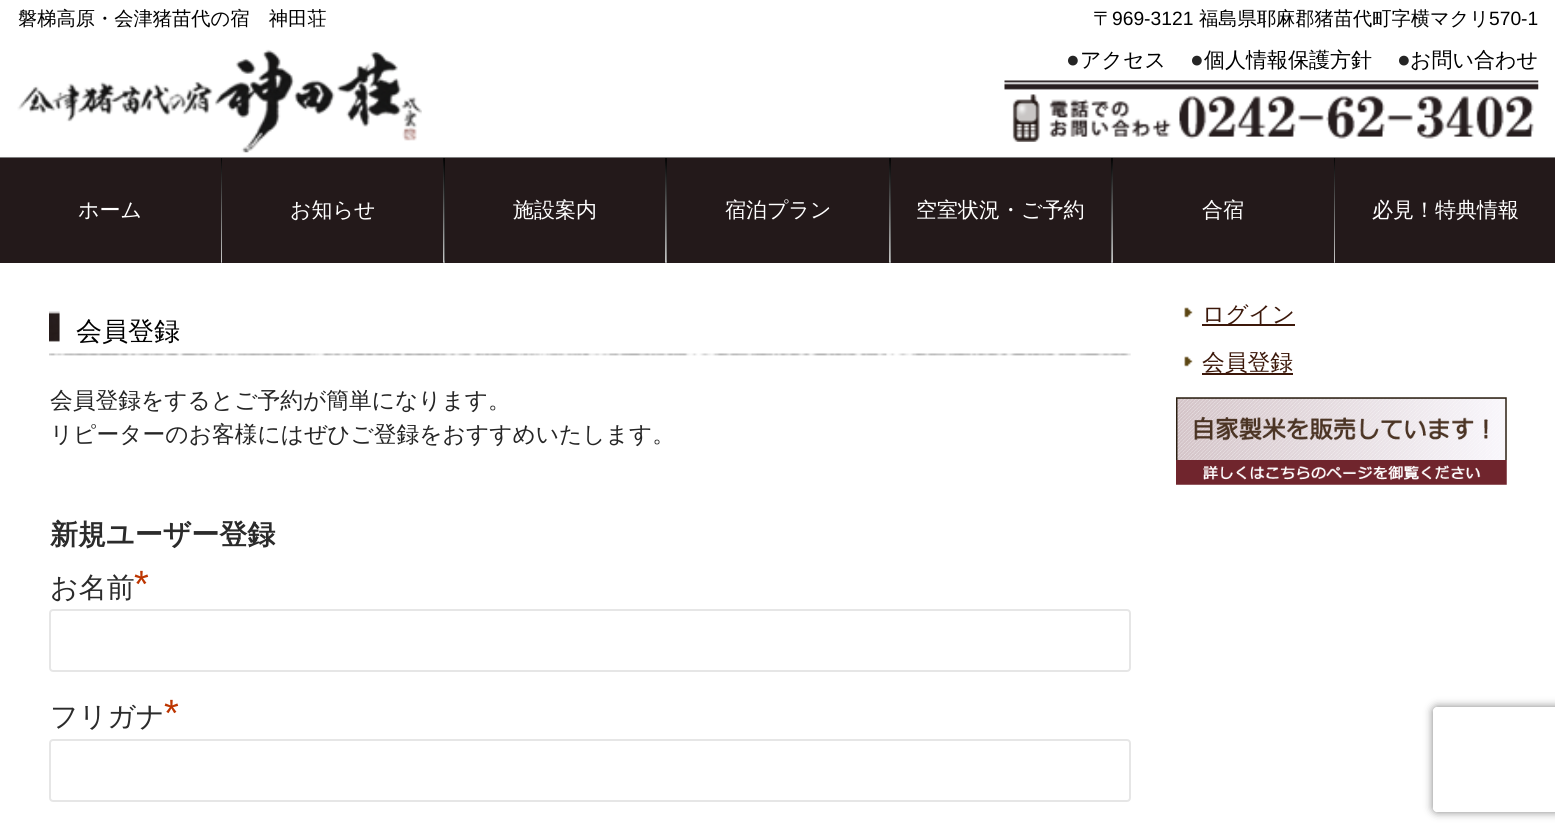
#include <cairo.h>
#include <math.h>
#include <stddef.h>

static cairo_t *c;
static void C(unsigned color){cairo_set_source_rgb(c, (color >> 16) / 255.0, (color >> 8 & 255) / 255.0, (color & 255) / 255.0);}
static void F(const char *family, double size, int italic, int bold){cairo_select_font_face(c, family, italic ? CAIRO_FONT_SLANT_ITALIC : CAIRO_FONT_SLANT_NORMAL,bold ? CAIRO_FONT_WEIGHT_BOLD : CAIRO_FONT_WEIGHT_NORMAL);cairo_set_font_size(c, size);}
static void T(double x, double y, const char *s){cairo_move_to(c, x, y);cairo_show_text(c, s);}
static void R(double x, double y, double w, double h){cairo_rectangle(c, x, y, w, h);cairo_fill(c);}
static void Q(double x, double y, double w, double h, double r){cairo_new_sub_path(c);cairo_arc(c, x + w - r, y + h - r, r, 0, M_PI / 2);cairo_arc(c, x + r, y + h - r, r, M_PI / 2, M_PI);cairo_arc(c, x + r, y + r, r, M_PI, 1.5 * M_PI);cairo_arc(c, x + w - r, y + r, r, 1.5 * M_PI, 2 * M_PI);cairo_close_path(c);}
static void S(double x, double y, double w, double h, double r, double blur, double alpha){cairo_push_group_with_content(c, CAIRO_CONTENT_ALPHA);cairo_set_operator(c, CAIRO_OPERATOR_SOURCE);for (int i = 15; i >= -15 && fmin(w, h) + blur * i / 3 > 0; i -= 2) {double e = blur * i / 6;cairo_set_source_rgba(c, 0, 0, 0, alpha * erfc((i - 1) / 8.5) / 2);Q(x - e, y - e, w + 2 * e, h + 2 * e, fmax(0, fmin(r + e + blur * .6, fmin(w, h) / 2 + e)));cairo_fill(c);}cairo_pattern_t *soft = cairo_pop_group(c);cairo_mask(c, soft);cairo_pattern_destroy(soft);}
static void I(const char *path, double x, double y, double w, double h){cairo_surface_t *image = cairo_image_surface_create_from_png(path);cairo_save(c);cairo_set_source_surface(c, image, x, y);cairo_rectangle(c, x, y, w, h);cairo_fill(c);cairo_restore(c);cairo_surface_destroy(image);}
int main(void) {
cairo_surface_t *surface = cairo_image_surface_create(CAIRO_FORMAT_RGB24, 1555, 835);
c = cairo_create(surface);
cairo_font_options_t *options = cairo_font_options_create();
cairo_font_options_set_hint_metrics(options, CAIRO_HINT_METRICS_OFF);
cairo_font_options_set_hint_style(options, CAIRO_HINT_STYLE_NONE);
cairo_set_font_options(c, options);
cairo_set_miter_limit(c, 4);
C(0xffffff);
cairo_paint(c);
I("1.png",0,0,1555,263);
F("WenQuanYi Zen Hei Medium",19.25,0,0);
C(0x000000);
T(18,25,"磐梯高原・会津猪苗代の宿　神田荘");
T(1093,25,"〒");
F("Liberation Sans",19.25,0,0);
T(1112,25,"969-3121");
F("WenQuanYi Zen Hei Medium",19.25,0,0);
T(1199,25,"福島県耶麻郡猪苗代町字横マクリ");
F("Liberation Sans",19.25,0,0);
T(1489,25,"570-1");
I("2.png",17,49,405,104);
F("Liberation Sans",22.75,0,0);
C(0x252525);
T(1066,67,"●");
F("WenQuanYi Zen Hei Medium",21,0,0);
C(0x000000);
T(1080,67,"アクセス");
F("Liberation Sans",22.75,0,0);
C(0x252525);
T(1190,67,"●");
F("WenQuanYi Zen Hei Medium",21,0,0);
C(0x000000);
T(1204,67,"個人情報保護方針");
F("Liberation Sans",22.75,0,0);
C(0x252525);
T(1397,67,"●");
F("WenQuanYi Zen Hei Medium",21,0,0);
C(0x000000);
T(1410,67,"お問い合わせ");
I("3.png",1004,80,535,62);
I("4.png",221,158,1,105);
C(0x23191a);
R(0,158,221,105);
C(0xffffff);
T(78,217,"ホーム");
I("5.png",443,158,2,105);
C(0x23191a);
R(222,158,221,105);
C(0xffffff);
T(290,217,"お知らせ");
I("6.png",665,158,2,105);
C(0x23191a);
R(445,158,220,105);
C(0xffffff);
T(513,217,"施設案内");
I("7.png",889,158,2,105);
C(0x23191a);
R(667,158,222,105);
C(0xffffff);
T(725,217,"宿泊プラン");
I("8.png",1111,158,2,105);
C(0x23191a);
R(891,158,220,105);
C(0xffffff);
T(916,217,"空室状況・ご予約");
I("9.png",1334,158,1,105);
C(0x23191a);
R(1113,158,221,105);
C(0xffffff);
T(1202,217,"合宿");
C(0x23191a);
R(1335,158,220,105);
C(0xffffff);
T(1372,217,"必見！特典情報");
I("10.png",49,311,1082,45);
F("WenQuanYi Zen Hei Medium",26,0,0);
C(0x000000);
T(76,340,"会員登録");
F("WenQuanYi Zen Hei Medium",22.75,0,0);
C(0x252525);
T(50,408,"会員登録をするとご予約が簡単になります。");
T(50,442,"リピーターのお客様にはぜひご登録をおすすめいたします。");
F("WenQuanYi Zen Hei",28,0,1);
C(0x2b2b2b);
T(50,544,"新規ユーザー登録");
F("WenQuanYi Zen Hei Medium",28,0,0);
T(50,597,"お名前");
F("Liberation Sans",38,0,0);
C(0xbd3500);
T(134,597,"*");
Q(50,610,1080,61,3);
C(0xe6e6e6);
cairo_stroke(c);
F("WenQuanYi Zen Hei Medium",28,0,0);
C(0x2b2b2b);
T(50,726,"フリガナ");
F("Liberation Sans",38,0,0);
C(0xbd3500);
T(164,726,"*");
Q(50,740,1080,61,3);
C(0xe6e6e6);
cairo_stroke(c);
I("11.png",1184,307,9,11);
C(0x3c180a);
R(1202,324,93,2);
F("WenQuanYi Zen Hei Medium",22.75,0,0);
T(1202,322,"ログイン");
I("11.png",1184,356,9,11);
R(1202,373,91,2);
T(1202,370,"会員登録");
I("12.png",1176,397,331,88);
cairo_save(c);
cairo_set_fill_rule(c,CAIRO_FILL_RULE_EVEN_ODD);
cairo_new_path(c);
cairo_move_to(c,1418,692);
cairo_line_to(c,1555,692);
cairo_line_to(c,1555,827);
cairo_line_to(c,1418,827);
cairo_close_path(c);
cairo_move_to(c,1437,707);
cairo_line_to(c,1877,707);
cairo_curve_to(c,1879,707,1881,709,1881,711);
cairo_line_to(c,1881,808);
cairo_curve_to(c,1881,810,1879,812,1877,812);
cairo_line_to(c,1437,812);
cairo_curve_to(c,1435,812,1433,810,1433,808);
cairo_line_to(c,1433,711);
cairo_curve_to(c,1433,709,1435,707,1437,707);
cairo_close_path(c);
cairo_clip(c);
C(0x808080);
S(1433,707,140,105,4,4.5,1);
cairo_restore(c);
cairo_surface_write_to_png(surface, "o.png");
cairo_font_options_destroy(options);
cairo_destroy(c);
cairo_surface_destroy(surface);
return 0;
}
